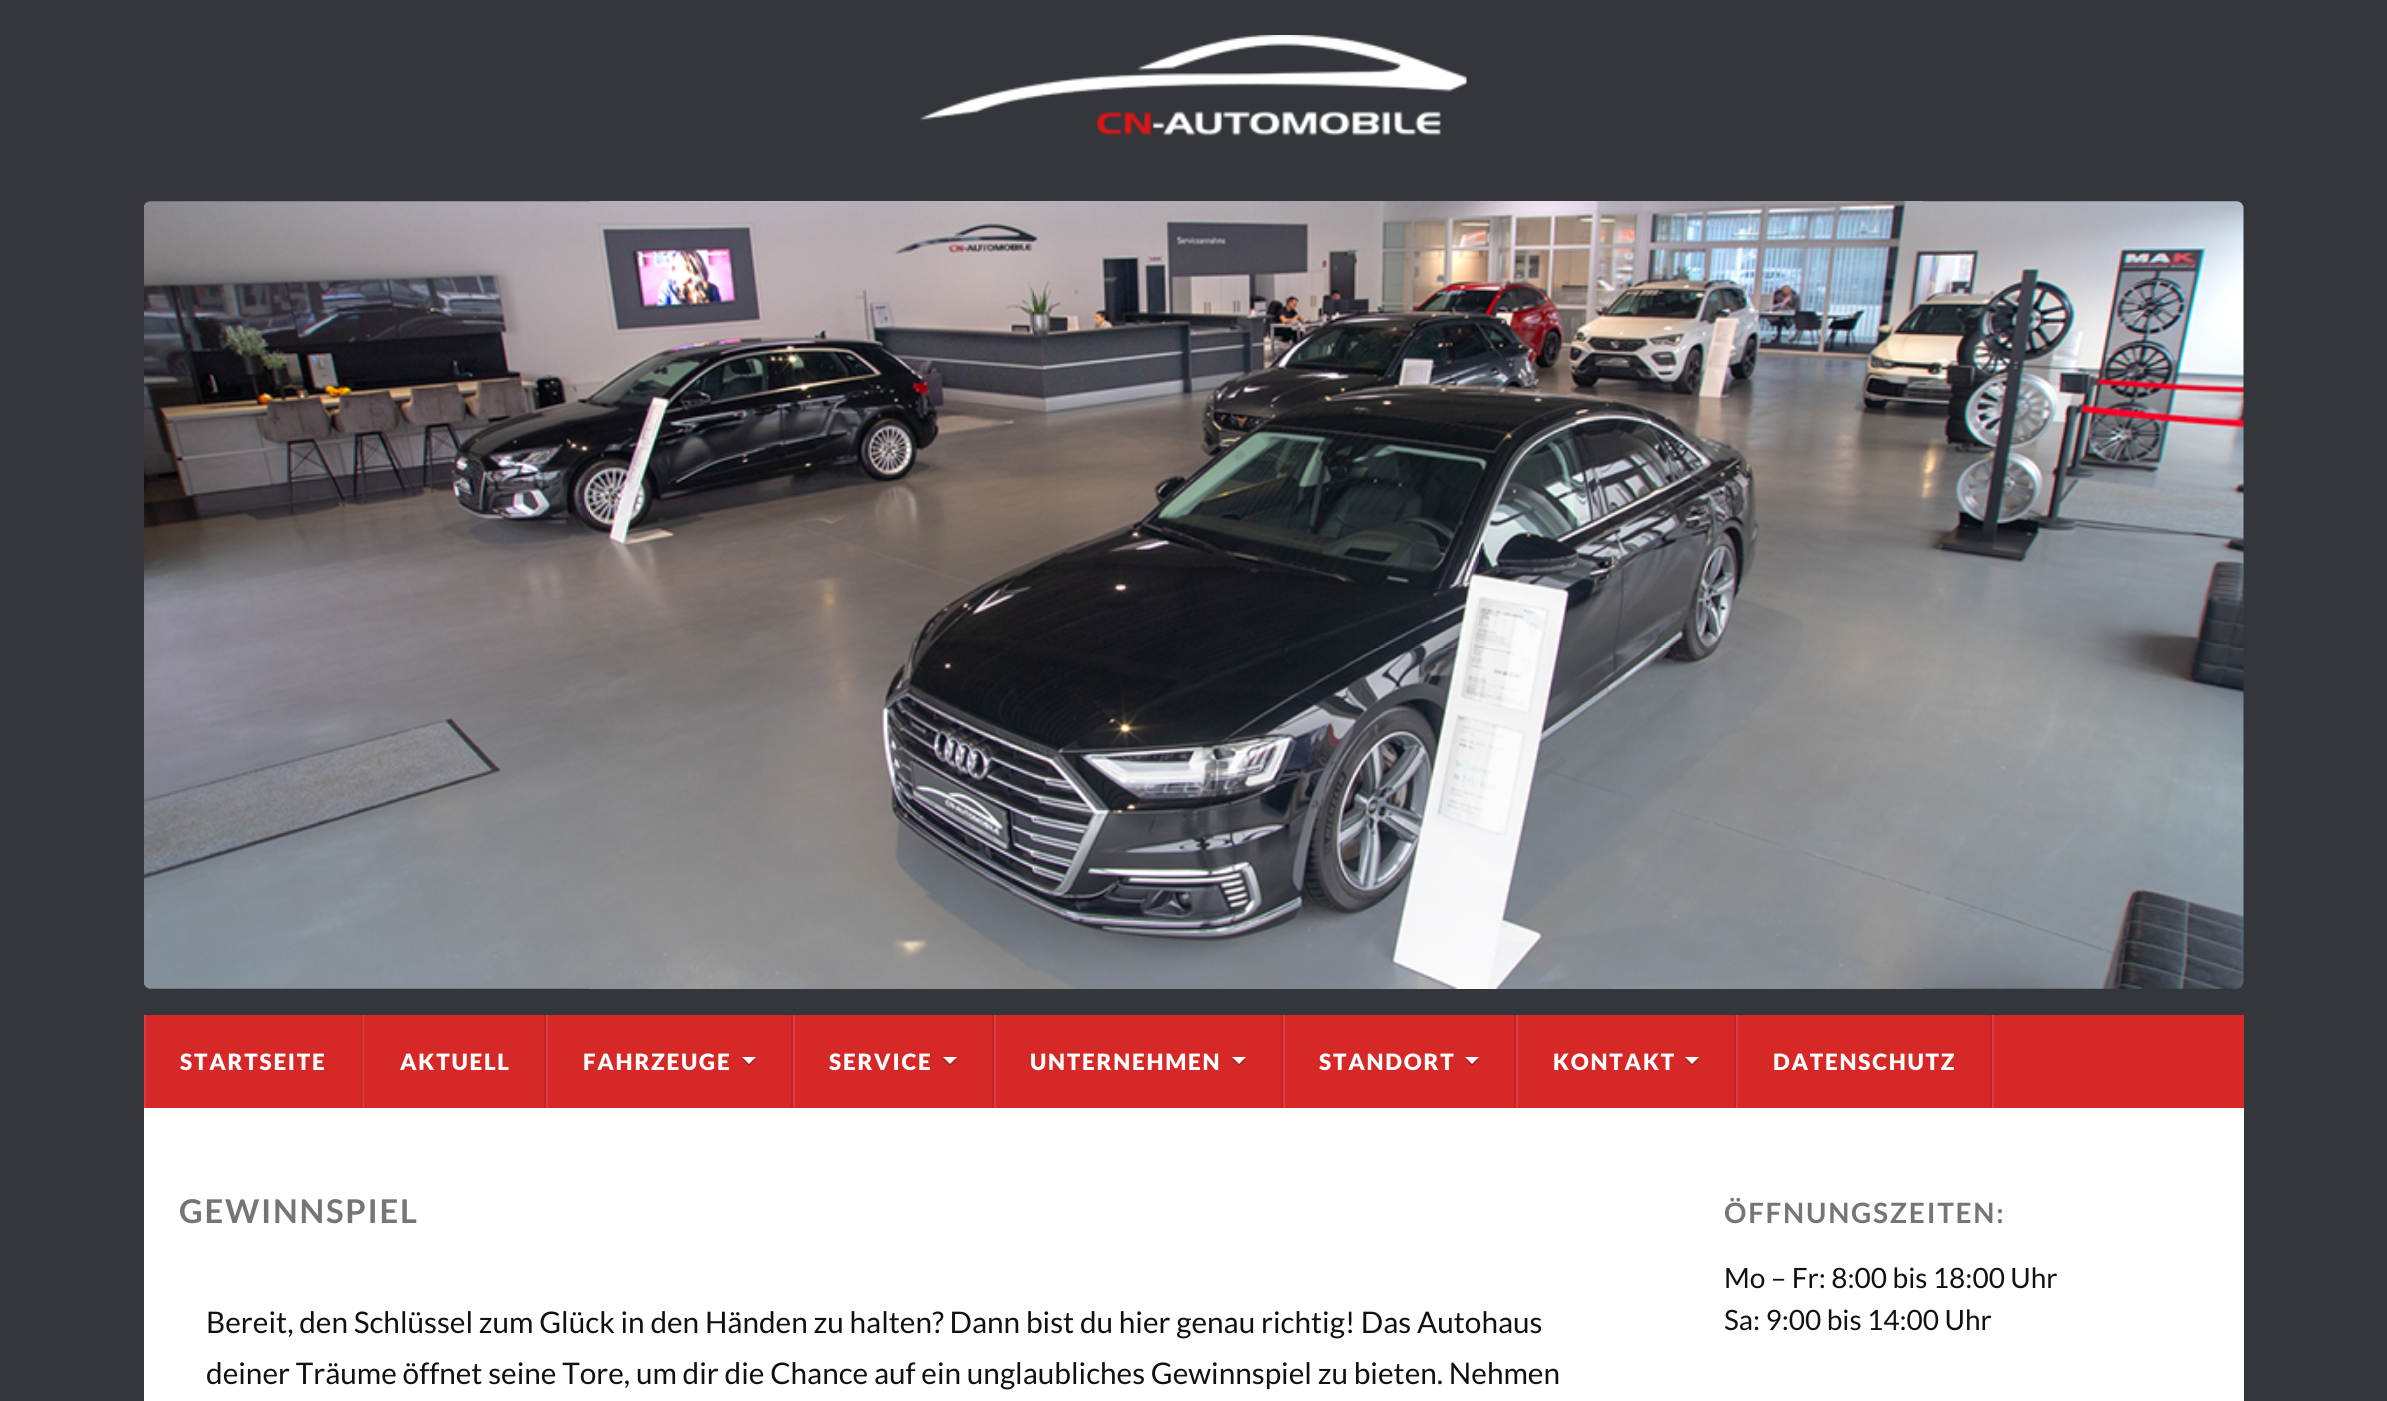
#include <cairo.h>
#include <math.h>
#include <stddef.h>

static cairo_t *c;
static void C(unsigned color){cairo_set_source_rgb(c, (color >> 16) / 255.0, (color >> 8 & 255) / 255.0, (color & 255) / 255.0);}
static void F(const char *family, double size, int italic, int bold){cairo_select_font_face(c, family, italic ? CAIRO_FONT_SLANT_ITALIC : CAIRO_FONT_SLANT_NORMAL,bold ? CAIRO_FONT_WEIGHT_BOLD : CAIRO_FONT_WEIGHT_NORMAL);cairo_set_font_size(c, size);}
static void T(double x, double y, const char *s){cairo_move_to(c, x, y);cairo_show_text(c, s);}
static void L(double x, double y, const char *s, double letter, double word){cairo_move_to(c, x, y);while (*s) {char ch[5] = {0};int n = 0;do ch[n++] = *s++; while ((*s & 0xC0) == 0x80);cairo_show_text(c, ch);cairo_rel_move_to(c, letter + word * (*ch == ' '), 0);}}
static void R(double x, double y, double w, double h){cairo_rectangle(c, x, y, w, h);cairo_fill(c);}
static void I(const char *path, double x, double y, double w, double h){cairo_surface_t *image = cairo_image_surface_create_from_png(path);cairo_save(c);cairo_set_source_surface(c, image, x, y);cairo_rectangle(c, x, y, w, h);cairo_fill(c);cairo_restore(c);cairo_surface_destroy(image);}
int main(void) {
cairo_surface_t *surface = cairo_image_surface_create(CAIRO_FORMAT_RGB24, 2387, 1401);
c = cairo_create(surface);
cairo_font_options_t *options = cairo_font_options_create();
cairo_font_options_set_hint_metrics(options, CAIRO_HINT_METRICS_OFF);
cairo_font_options_set_hint_style(options, CAIRO_HINT_STYLE_NONE);
cairo_set_font_options(c, options);
cairo_set_miter_limit(c, 4);
C(0x33363b);
cairo_paint(c);
I("1.png",920,35,547,101);
I("2.png",144,201,2100,788);
C(0xd72828);
R(146,1015,2098,93);
C(0xdb3e3e);
R(363,1015,1,93);
C(0xc22424);
R(361,1015,1,93);
C(0xc83a3a);
R(362,1015,1,93);
C(0xdb3e3e);
R(144,1015,2,93);
F("Lato Black",22.5,0,0);
C(0xffffff);
L(180,1070,"STARTSEITE",1.75,0);
C(0xc22424);
R(544,1015,2,93);
C(0xffffff);
L(400,1070,"AKTUELL",1.75,0);
C(0xc22424);
R(791,1015,2,93);
C(0xdb3e3e);
R(546,1015,2,93);
C(0xffffff);
L(583,1070,"FAHRZEUGE",1.75,0);
C(0xa11e1e);
cairo_new_path(c);
cairo_move_to(c,742,1059);
cairo_line_to(c,756,1059);
cairo_line_to(c,749,1066);
cairo_close_path(c);
cairo_fill(c);
C(0xffffff);
cairo_new_path(c);
cairo_move_to(c,742,1057);
cairo_line_to(c,756,1057);
cairo_line_to(c,749,1064);
cairo_close_path(c);
cairo_fill(c);
C(0xc22424);
R(992,1015,2,93);
C(0xdb3e3e);
R(793,1015,2,93);
C(0xffffff);
L(829,1070,"SERVICE",1.75,0);
C(0xa11e1e);
cairo_new_path(c);
cairo_move_to(c,943,1059);
cairo_line_to(c,957,1059);
cairo_line_to(c,950,1066);
cairo_close_path(c);
cairo_fill(c);
C(0xffffff);
cairo_new_path(c);
cairo_move_to(c,943,1057);
cairo_line_to(c,957,1057);
cairo_line_to(c,950,1064);
cairo_close_path(c);
cairo_fill(c);
C(0xc22424);
R(1281,1015,2,93);
C(0xdb3e3e);
R(994,1015,2,93);
C(0xffffff);
L(1030,1070,"UNTERNEHMEN",1.75,0);
C(0xa11e1e);
cairo_new_path(c);
cairo_move_to(c,1232,1059);
cairo_line_to(c,1246,1059);
cairo_line_to(c,1239,1066);
cairo_close_path(c);
cairo_fill(c);
C(0xffffff);
cairo_new_path(c);
cairo_move_to(c,1232,1057);
cairo_line_to(c,1246,1057);
cairo_line_to(c,1239,1064);
cairo_close_path(c);
cairo_fill(c);
C(0xc22424);
R(1514,1015,2,93);
C(0xdb3e3e);
R(1283,1015,2,93);
C(0xffffff);
L(1319,1070,"STANDORT",1.75,0);
C(0xa11e1e);
cairo_new_path(c);
cairo_move_to(c,1465,1059);
cairo_line_to(c,1479,1059);
cairo_line_to(c,1472,1066);
cairo_close_path(c);
cairo_fill(c);
C(0xffffff);
cairo_new_path(c);
cairo_move_to(c,1465,1057);
cairo_line_to(c,1479,1057);
cairo_line_to(c,1472,1064);
cairo_close_path(c);
cairo_fill(c);
C(0xc22424);
R(1734,1015,2,93);
C(0xdb3e3e);
R(1516,1015,2,93);
C(0xffffff);
L(1553,1070,"KONTAKT",1.75,0);
C(0xa11e1e);
cairo_new_path(c);
cairo_move_to(c,1685,1059);
cairo_line_to(c,1699,1059);
cairo_line_to(c,1692,1066);
cairo_close_path(c);
cairo_fill(c);
C(0xffffff);
cairo_new_path(c);
cairo_move_to(c,1685,1057);
cairo_line_to(c,1699,1057);
cairo_line_to(c,1692,1064);
cairo_close_path(c);
cairo_fill(c);
C(0xc22424);
R(1990,1015,2,93);
C(0xdb3e3e);
R(1736,1015,2,93);
C(0xffffff);
L(1773,1070,"DATENSCHUTZ",1.75,0);
C(0xdb3e3e);
R(1992,1015,2,93);
C(0xffffff);
R(144,1108,2100,293);
F("Lato",32.75,0,1);
C(0x757477);
L(179,1223,"GEWINNSPIEL",1.75,0);
F("Lato",29.75,0,0);
C(0x111111);
T(206,1333,"Bereit, den Schlüssel zum Glück in den Händen zu halten? Dann bist du hier genau richtig! Das Autohaus");
T(206,1384,"deiner Träume öffnet seine Tore, um dir die Chance auf ein unglaubliches Gewinnspiel zu bieten. Nehmen");
F("Lato",28,0,1);
C(0x757477);
L(1724,1223,"ÖFFNUNGSZEITEN:",1.75,0);
F("Lato",28,0,0);
C(0x111111);
T(1724,1288,"Mo – Fr: 8:00 bis 18:00 Uhr");
T(1724,1330,"Sa: 9:00 bis 14:00 Uhr");
cairo_surface_write_to_png(surface, "o.png");
cairo_font_options_destroy(options);
cairo_destroy(c);
cairo_surface_destroy(surface);
return 0;
}
